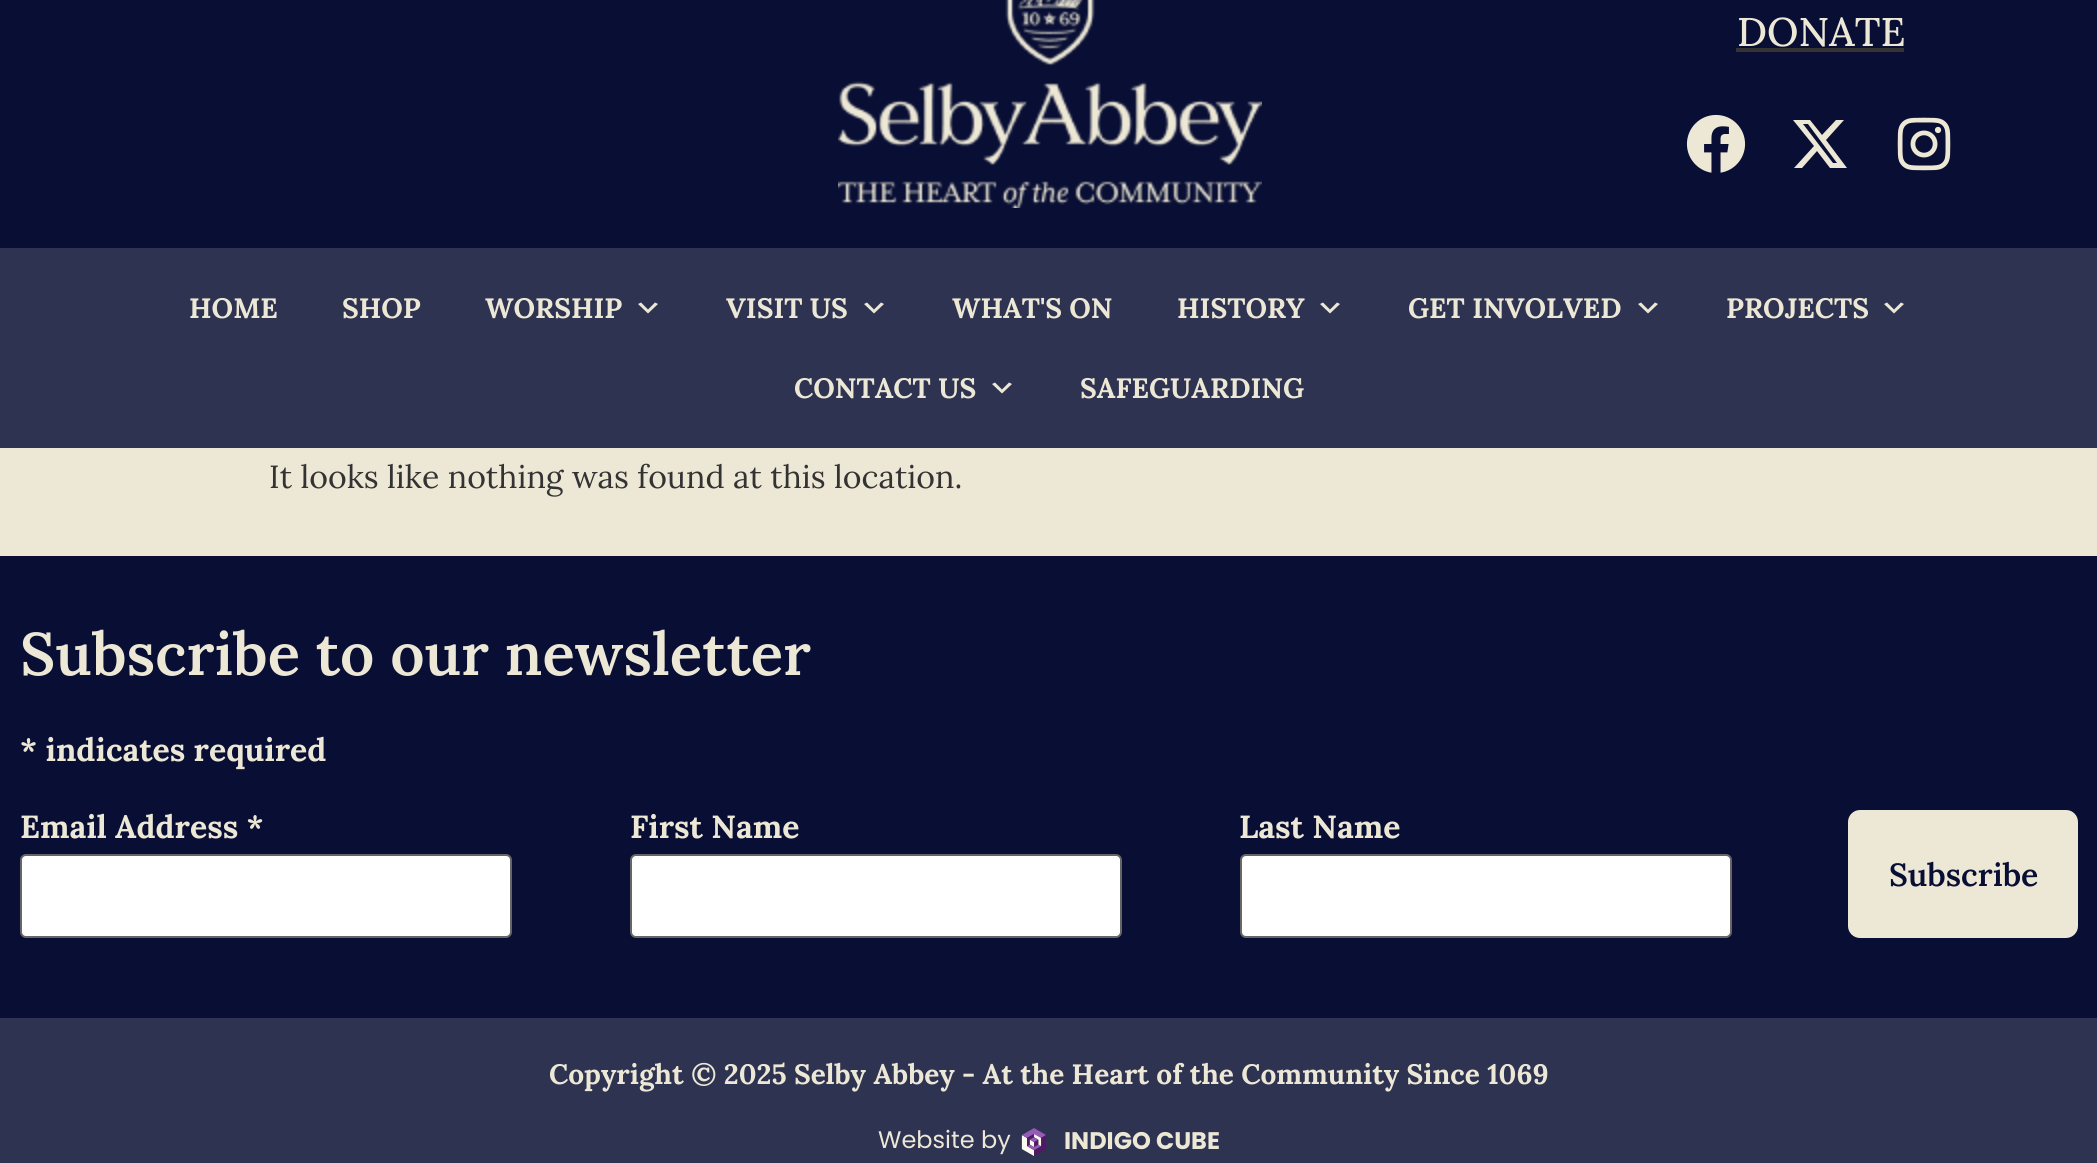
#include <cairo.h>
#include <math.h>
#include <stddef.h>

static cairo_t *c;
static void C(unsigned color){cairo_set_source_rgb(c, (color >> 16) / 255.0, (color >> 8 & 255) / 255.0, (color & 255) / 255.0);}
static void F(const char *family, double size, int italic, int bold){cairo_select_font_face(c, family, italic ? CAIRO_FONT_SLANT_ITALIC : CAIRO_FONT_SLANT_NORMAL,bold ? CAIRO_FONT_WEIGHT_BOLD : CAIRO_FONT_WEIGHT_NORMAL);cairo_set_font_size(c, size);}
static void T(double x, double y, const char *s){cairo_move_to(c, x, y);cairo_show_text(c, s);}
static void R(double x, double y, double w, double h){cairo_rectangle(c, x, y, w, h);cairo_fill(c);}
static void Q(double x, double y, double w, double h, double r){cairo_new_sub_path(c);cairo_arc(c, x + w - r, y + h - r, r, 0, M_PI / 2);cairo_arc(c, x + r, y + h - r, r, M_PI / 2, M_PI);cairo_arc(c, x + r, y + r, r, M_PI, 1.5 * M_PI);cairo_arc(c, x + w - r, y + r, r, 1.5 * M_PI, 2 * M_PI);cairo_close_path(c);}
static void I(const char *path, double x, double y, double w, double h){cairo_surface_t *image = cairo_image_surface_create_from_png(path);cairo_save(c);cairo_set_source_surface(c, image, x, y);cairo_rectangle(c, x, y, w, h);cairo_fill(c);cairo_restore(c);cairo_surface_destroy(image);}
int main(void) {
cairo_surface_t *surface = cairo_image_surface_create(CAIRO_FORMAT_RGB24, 2097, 1163);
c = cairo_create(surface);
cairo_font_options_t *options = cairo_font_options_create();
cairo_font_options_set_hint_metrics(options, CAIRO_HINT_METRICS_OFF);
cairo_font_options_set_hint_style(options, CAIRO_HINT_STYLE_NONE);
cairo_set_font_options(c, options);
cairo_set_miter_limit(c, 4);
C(0xede8d6);
cairo_paint(c);
C(0x090f34);
R(0,0,2097,248);
I("1.png",838,0,424,208);
F("Lora Medium",40,0,0);
C(0xede8d6);
T(1737,46,"DONATE");
C(0x333333);
R(1736,48,168,4);
I("2.png",1686,114,60,59);
C(0xede8d6);
cairo_new_path(c);
cairo_move_to(c,1836,120);
cairo_line_to(c,1844,120);
cairo_line_to(c,1826,140);
cairo_line_to(c,1847,168);
cairo_line_to(c,1830,168);
cairo_line_to(c,1817,151);
cairo_line_to(c,1802,168);
cairo_line_to(c,1794,168);
cairo_line_to(c,1814,146);
cairo_line_to(c,1793,120);
cairo_line_to(c,1810,120);
cairo_line_to(c,1822,135);
cairo_close_path(c);
cairo_move_to(c,1833,163);
cairo_line_to(c,1837,163);
cairo_line_to(c,1808,124);
cairo_line_to(c,1803,124);
cairo_close_path(c);
cairo_fill(c);
I("3.png",1897,117,54,54);
C(0x2e3352);
R(0,248,2097,200);
F("Lora",28,0,1);
C(0xede8d6);
T(189,318,"HOME");
T(342,318,"SHOP");
T(485,318,"WORSHIP");
cairo_new_path(c);
cairo_move_to(c,641,302.5);
cairo_line_to(c,648,309.5);
cairo_line_to(c,655,302.5);
cairo_line_to(c,658,304);
cairo_line_to(c,648,313.5);
cairo_line_to(c,638,304);
cairo_close_path(c);
cairo_fill(c);
T(726,318,"VISIT US");
cairo_new_path(c);
cairo_move_to(c,867,302.5);
cairo_line_to(c,874,309.5);
cairo_line_to(c,881,302.5);
cairo_line_to(c,884,304);
cairo_line_to(c,874,313.5);
cairo_line_to(c,864,304);
cairo_close_path(c);
cairo_fill(c);
T(952,318,"WHAT'S ON");
T(1177,318,"HISTORY");
cairo_new_path(c);
cairo_move_to(c,1323,302.5);
cairo_line_to(c,1330,309.5);
cairo_line_to(c,1337,302.5);
cairo_line_to(c,1340,304);
cairo_line_to(c,1330,313.5);
cairo_line_to(c,1320,304);
cairo_close_path(c);
cairo_fill(c);
T(1408,318,"GET INVOLVED");
cairo_new_path(c);
cairo_move_to(c,1641,302.5);
cairo_line_to(c,1648,309.5);
cairo_line_to(c,1655,302.5);
cairo_line_to(c,1658,304);
cairo_line_to(c,1648,313.5);
cairo_line_to(c,1638,304);
cairo_close_path(c);
cairo_fill(c);
T(1726,318,"PROJECTS");
cairo_new_path(c);
cairo_move_to(c,1887,302.5);
cairo_line_to(c,1894,309.5);
cairo_line_to(c,1901,302.5);
cairo_line_to(c,1904,304);
cairo_line_to(c,1894,313.5);
cairo_line_to(c,1884,304);
cairo_close_path(c);
cairo_fill(c);
T(794,398,"CONTACT US");
cairo_new_path(c);
cairo_move_to(c,995,382.5);
cairo_line_to(c,1002,389.5);
cairo_line_to(c,1009,382.5);
cairo_line_to(c,1012,384);
cairo_line_to(c,1002,393.5);
cairo_line_to(c,992,384);
cairo_close_path(c);
cairo_fill(c);
T(1080,398,"SAFEGUARDING");
F("Lora",32,0,0);
C(0x333333);
T(269,488,"It looks like nothing was found at this location.");
C(0x090f34);
R(0,556,2097,462);
F("Lora SemiBold",60,0,0);
C(0xede8d6);
T(20,675,"Subscribe to our newsletter");
F("Lora",32,0,1);
T(20,761,"* indicates required");
T(20,838,"Email Address *");
C(0xffffff);
Q(21,855,490,82,5);
cairo_fill_preserve(c);
C(0x666666);
cairo_stroke(c);
C(0xede8d6);
T(630,838,"First Name");
C(0xffffff);
Q(631,855,490,82,5);
cairo_fill_preserve(c);
C(0x666666);
cairo_stroke(c);
C(0xede8d6);
T(1239,838,"Last Name");
C(0xffffff);
Q(1241,855,490,82,5);
cairo_fill_preserve(c);
C(0x666666);
cairo_stroke(c);
C(0xede8d6);
Q(1848,810,230,128,12);
cairo_fill(c);
F("Lora SemiBold",32,0,0);
C(0x090f34);
T(1889,886,"Subscribe");
C(0x2e3352);
R(0,1018,2097,145);
F("Lora",28,0,1);
C(0xede8d6);
T(549,1084,"Copyright © 2025 Selby Abbey - At the Heart of the Community Since 1069");
F("Poppins",24,0,0);
T(878,1148,"Website by");
I("4.png",1021,1128,26,28);
F("Poppins",24,0,1);
T(1064,1149,"INDIGO CUBE");
cairo_surface_write_to_png(surface, "o.png");
cairo_font_options_destroy(options);
cairo_destroy(c);
cairo_surface_destroy(surface);
return 0;
}
